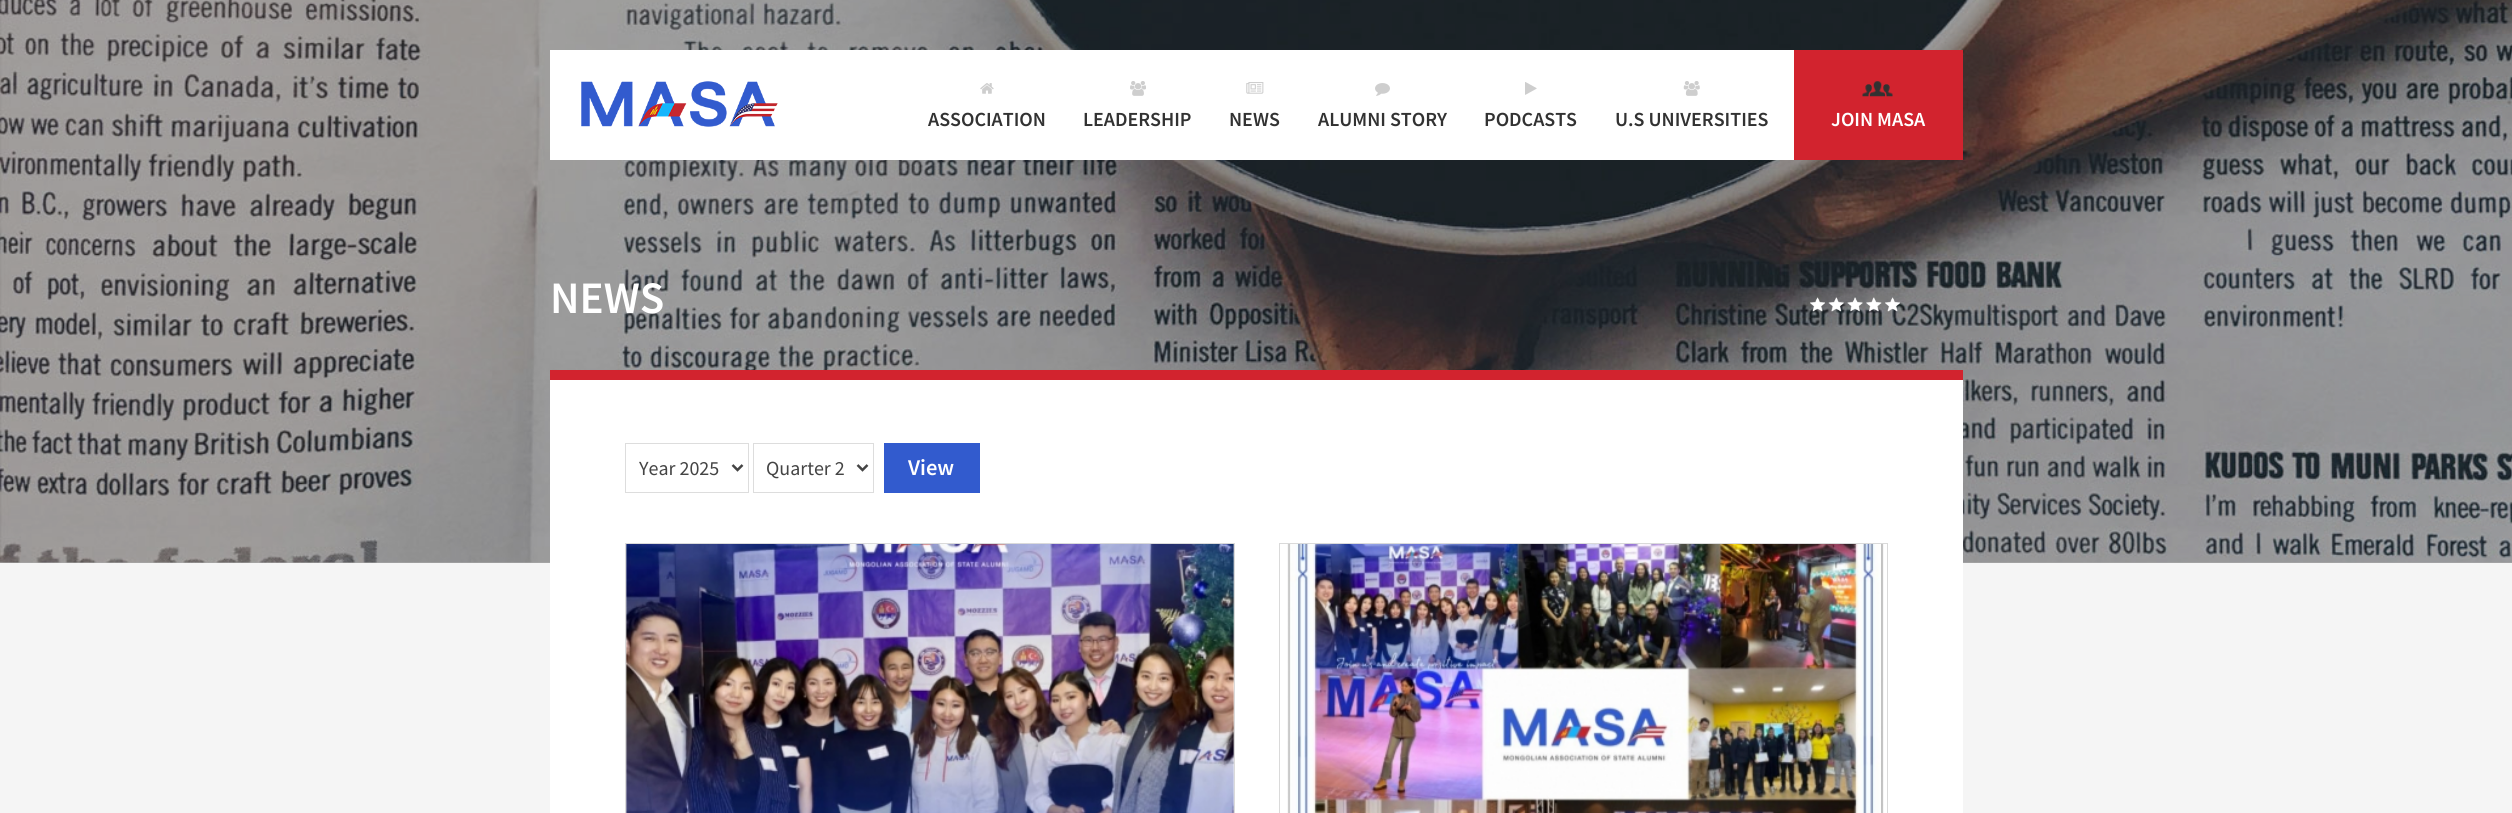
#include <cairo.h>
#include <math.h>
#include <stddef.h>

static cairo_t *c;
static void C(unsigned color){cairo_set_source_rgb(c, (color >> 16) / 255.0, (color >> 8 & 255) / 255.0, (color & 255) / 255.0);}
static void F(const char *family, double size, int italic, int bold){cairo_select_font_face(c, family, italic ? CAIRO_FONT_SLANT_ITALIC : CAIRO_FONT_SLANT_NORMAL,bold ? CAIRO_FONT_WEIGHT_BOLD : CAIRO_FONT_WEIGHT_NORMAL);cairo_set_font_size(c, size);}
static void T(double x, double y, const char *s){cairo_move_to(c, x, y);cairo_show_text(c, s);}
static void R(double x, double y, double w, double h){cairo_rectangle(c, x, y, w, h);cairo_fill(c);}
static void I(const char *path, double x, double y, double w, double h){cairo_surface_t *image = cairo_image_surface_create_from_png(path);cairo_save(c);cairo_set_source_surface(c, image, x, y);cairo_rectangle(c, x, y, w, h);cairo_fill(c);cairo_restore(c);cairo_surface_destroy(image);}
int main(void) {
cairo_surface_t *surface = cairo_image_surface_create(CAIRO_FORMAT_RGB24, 2512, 813);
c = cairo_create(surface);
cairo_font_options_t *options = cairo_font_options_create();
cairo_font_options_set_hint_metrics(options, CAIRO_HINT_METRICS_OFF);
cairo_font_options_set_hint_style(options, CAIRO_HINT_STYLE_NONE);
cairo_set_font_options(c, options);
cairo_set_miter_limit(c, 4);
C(0xf5f5f5);
cairo_paint(c);
C(0xacacac);
R(0,562,2512,1);
I("1.png",0,0,2512,563);
C(0xffffff);
R(550,50,1244,110);
I("2.png",581,81,197,46);
I("3.png",980,83,14,11);
F("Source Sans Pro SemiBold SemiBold",20,0,0);
C(0x323232);
T(928,126,"ASSOCIATION");
I("4.png",1130,81,16,15);
T(1083,126,"LEADERSHIP");
I("5.png",1246,82,18,12);
T(1229,126,"NEWS");
I("6.png",1375,83,15,13);
T(1318,126,"ALUMNI STORY");
I("7.png",1525,82,12,13);
T(1484,126,"PODCASTS");
I("8.png",1683,81,17,15);
T(1615,126,"U.S UNIVERSITIES");
C(0xd2232e);
R(1794,50,169,110);
I("9.png",1862,81,31,16);
C(0xffffff);
T(1831,126,"JOIN MASA");
F("Source Sans Pro SemiBold SemiBold",45,0,0);
T(550,313,"NEWS");
I("10.png",1810,297,15,15);
I("11.png",1828,297,16,15);
I("12.png",1847,297,16,15);
I("13.png",1866,297,16,15);
I("14.png",1885,297,15,15);
R(550,380,1413,433);
C(0xd2232e);
R(550,370,1413,10);
cairo_rectangle(c,625.5,443.5,123,49);
C(0xdddddd);
cairo_set_line_width(c,1);
cairo_stroke(c);
cairo_new_path(c);
cairo_move_to(c,732.5,465);
cairo_line_to(c,737.5,470);
cairo_line_to(c,742.5,465);
C(0x444444);
cairo_set_line_width(c,2.5);
cairo_stroke(c);
F("Source Sans Pro",20,0,0);
T(639,475,"Year 2025");
cairo_rectangle(c,753.5,443.5,120,49);
C(0xdddddd);
cairo_set_line_width(c,1);
cairo_stroke(c);
cairo_new_path(c);
cairo_move_to(c,857.5,465);
cairo_line_to(c,862.5,470);
cairo_line_to(c,867.5,465);
C(0x444444);
cairo_set_line_width(c,2.5);
cairo_stroke(c);
T(766,475,"Quarter 2");
C(0x325bce);
R(884,443,96,50);
F("Source Sans Pro SemiBold SemiBold",22.5,0,0);
C(0xffffff);
T(908,475,"View");
I("15.png",626,544,608,269);
cairo_rectangle(c,625.5,543.5,609,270);
C(0xdadada);
cairo_set_line_width(c,1);
cairo_stroke(c);
I("16.png",1287,544,597,269);
cairo_rectangle(c,1279.5,543.5,608,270);
cairo_stroke(c);
cairo_surface_write_to_png(surface, "o.png");
cairo_font_options_destroy(options);
cairo_destroy(c);
cairo_surface_destroy(surface);
return 0;
}
